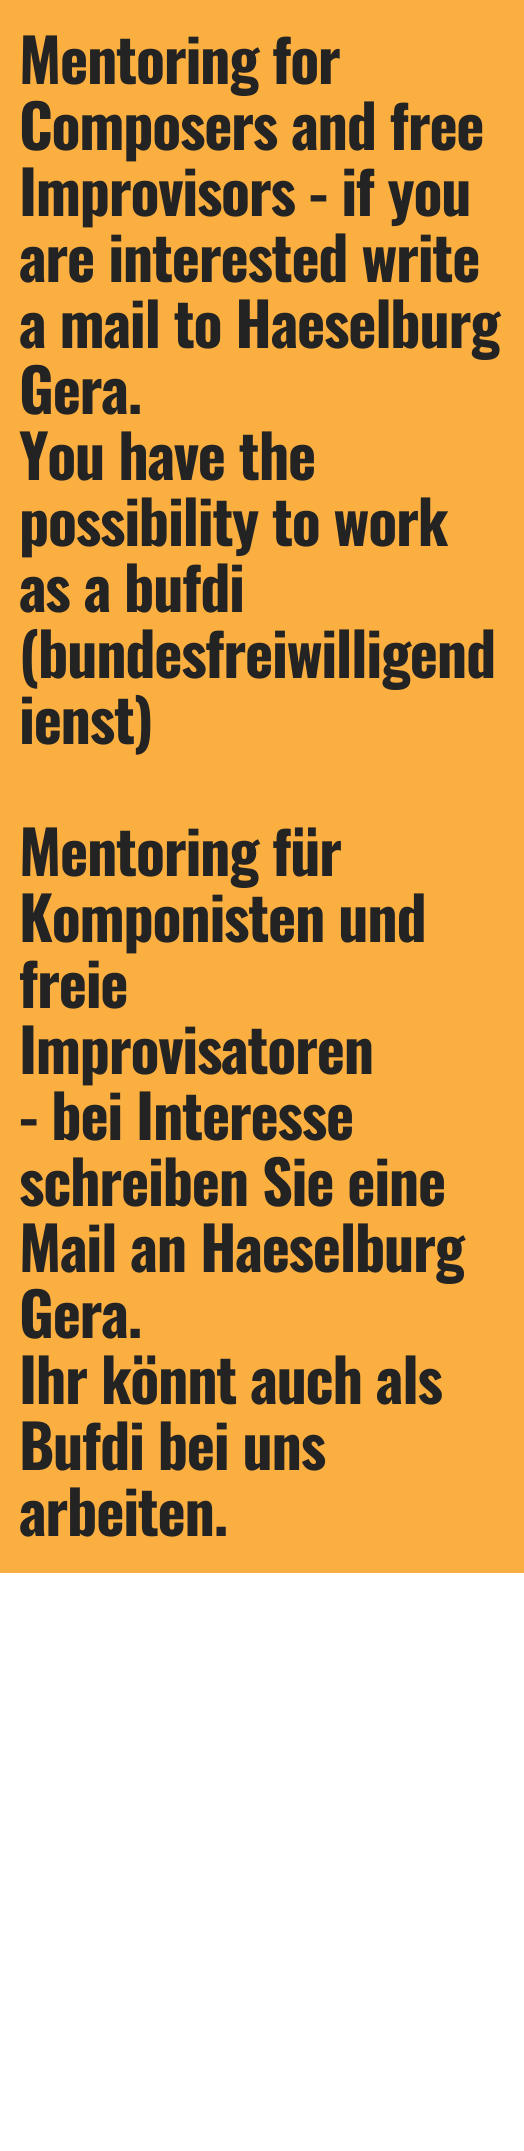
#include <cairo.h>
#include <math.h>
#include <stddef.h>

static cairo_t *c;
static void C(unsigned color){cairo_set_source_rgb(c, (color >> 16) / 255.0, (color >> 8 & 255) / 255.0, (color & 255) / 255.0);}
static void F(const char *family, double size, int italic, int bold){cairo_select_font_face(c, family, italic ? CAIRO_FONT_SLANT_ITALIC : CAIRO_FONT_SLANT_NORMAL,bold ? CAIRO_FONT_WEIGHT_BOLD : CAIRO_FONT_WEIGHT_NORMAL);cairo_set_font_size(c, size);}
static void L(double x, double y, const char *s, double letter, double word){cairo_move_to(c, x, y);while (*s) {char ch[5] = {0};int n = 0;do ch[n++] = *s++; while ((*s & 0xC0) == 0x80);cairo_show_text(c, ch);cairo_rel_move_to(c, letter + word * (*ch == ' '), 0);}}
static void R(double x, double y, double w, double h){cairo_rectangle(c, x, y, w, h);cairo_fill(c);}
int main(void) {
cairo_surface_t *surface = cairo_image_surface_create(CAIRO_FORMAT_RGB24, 524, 2151);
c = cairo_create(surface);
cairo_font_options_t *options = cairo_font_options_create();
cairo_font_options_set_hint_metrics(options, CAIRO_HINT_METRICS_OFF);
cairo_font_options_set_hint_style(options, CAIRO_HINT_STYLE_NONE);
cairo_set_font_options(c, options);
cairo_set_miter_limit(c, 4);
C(0xffffff);
cairo_paint(c);
C(0xfaaf40);
R(0,0,524,1573);
F("Oswald",60,0,1);
C(0x232323);
L(19,84,"Mentoring for",-1.25,0);
L(19,150,"Composers and free",-1.25,0);
L(19,216,"Improvisors - if you",-1.25,0);
L(19,282,"are interested write",-1.25,0);
L(19,348,"a mail to Haeselburg",-1.25,0);
L(19,414,"Gera.",-1.25,0);
L(19,480,"You have the",-1.25,0);
L(19,546,"possibility to work",-1.25,0);
L(19,612,"as a bufdi",-1.25,0);
L(19,678,"(bundesfreiwilligend",-1.25,0);
L(19,744,"ienst)",-1.25,0);
L(19,876,"Mentoring für",-1.25,0);
L(19,942,"Komponisten und",-1.25,0);
L(19,1008,"freie",-1.25,0);
L(19,1074,"Improvisatoren",-1.25,0);
L(19,1140,"- bei Interesse",-1.25,0);
L(19,1206,"schreiben Sie eine",-1.25,0);
L(19,1272,"Mail an Haeselburg",-1.25,0);
L(19,1338,"Gera.",-1.25,0);
L(19,1404,"Ihr könnt auch als",-1.25,0);
L(19,1470,"Bufdi bei uns",-1.25,0);
L(19,1536,"arbeiten.",-1.25,0);
cairo_surface_write_to_png(surface, "o.png");
cairo_font_options_destroy(options);
cairo_destroy(c);
cairo_surface_destroy(surface);
return 0;
}
